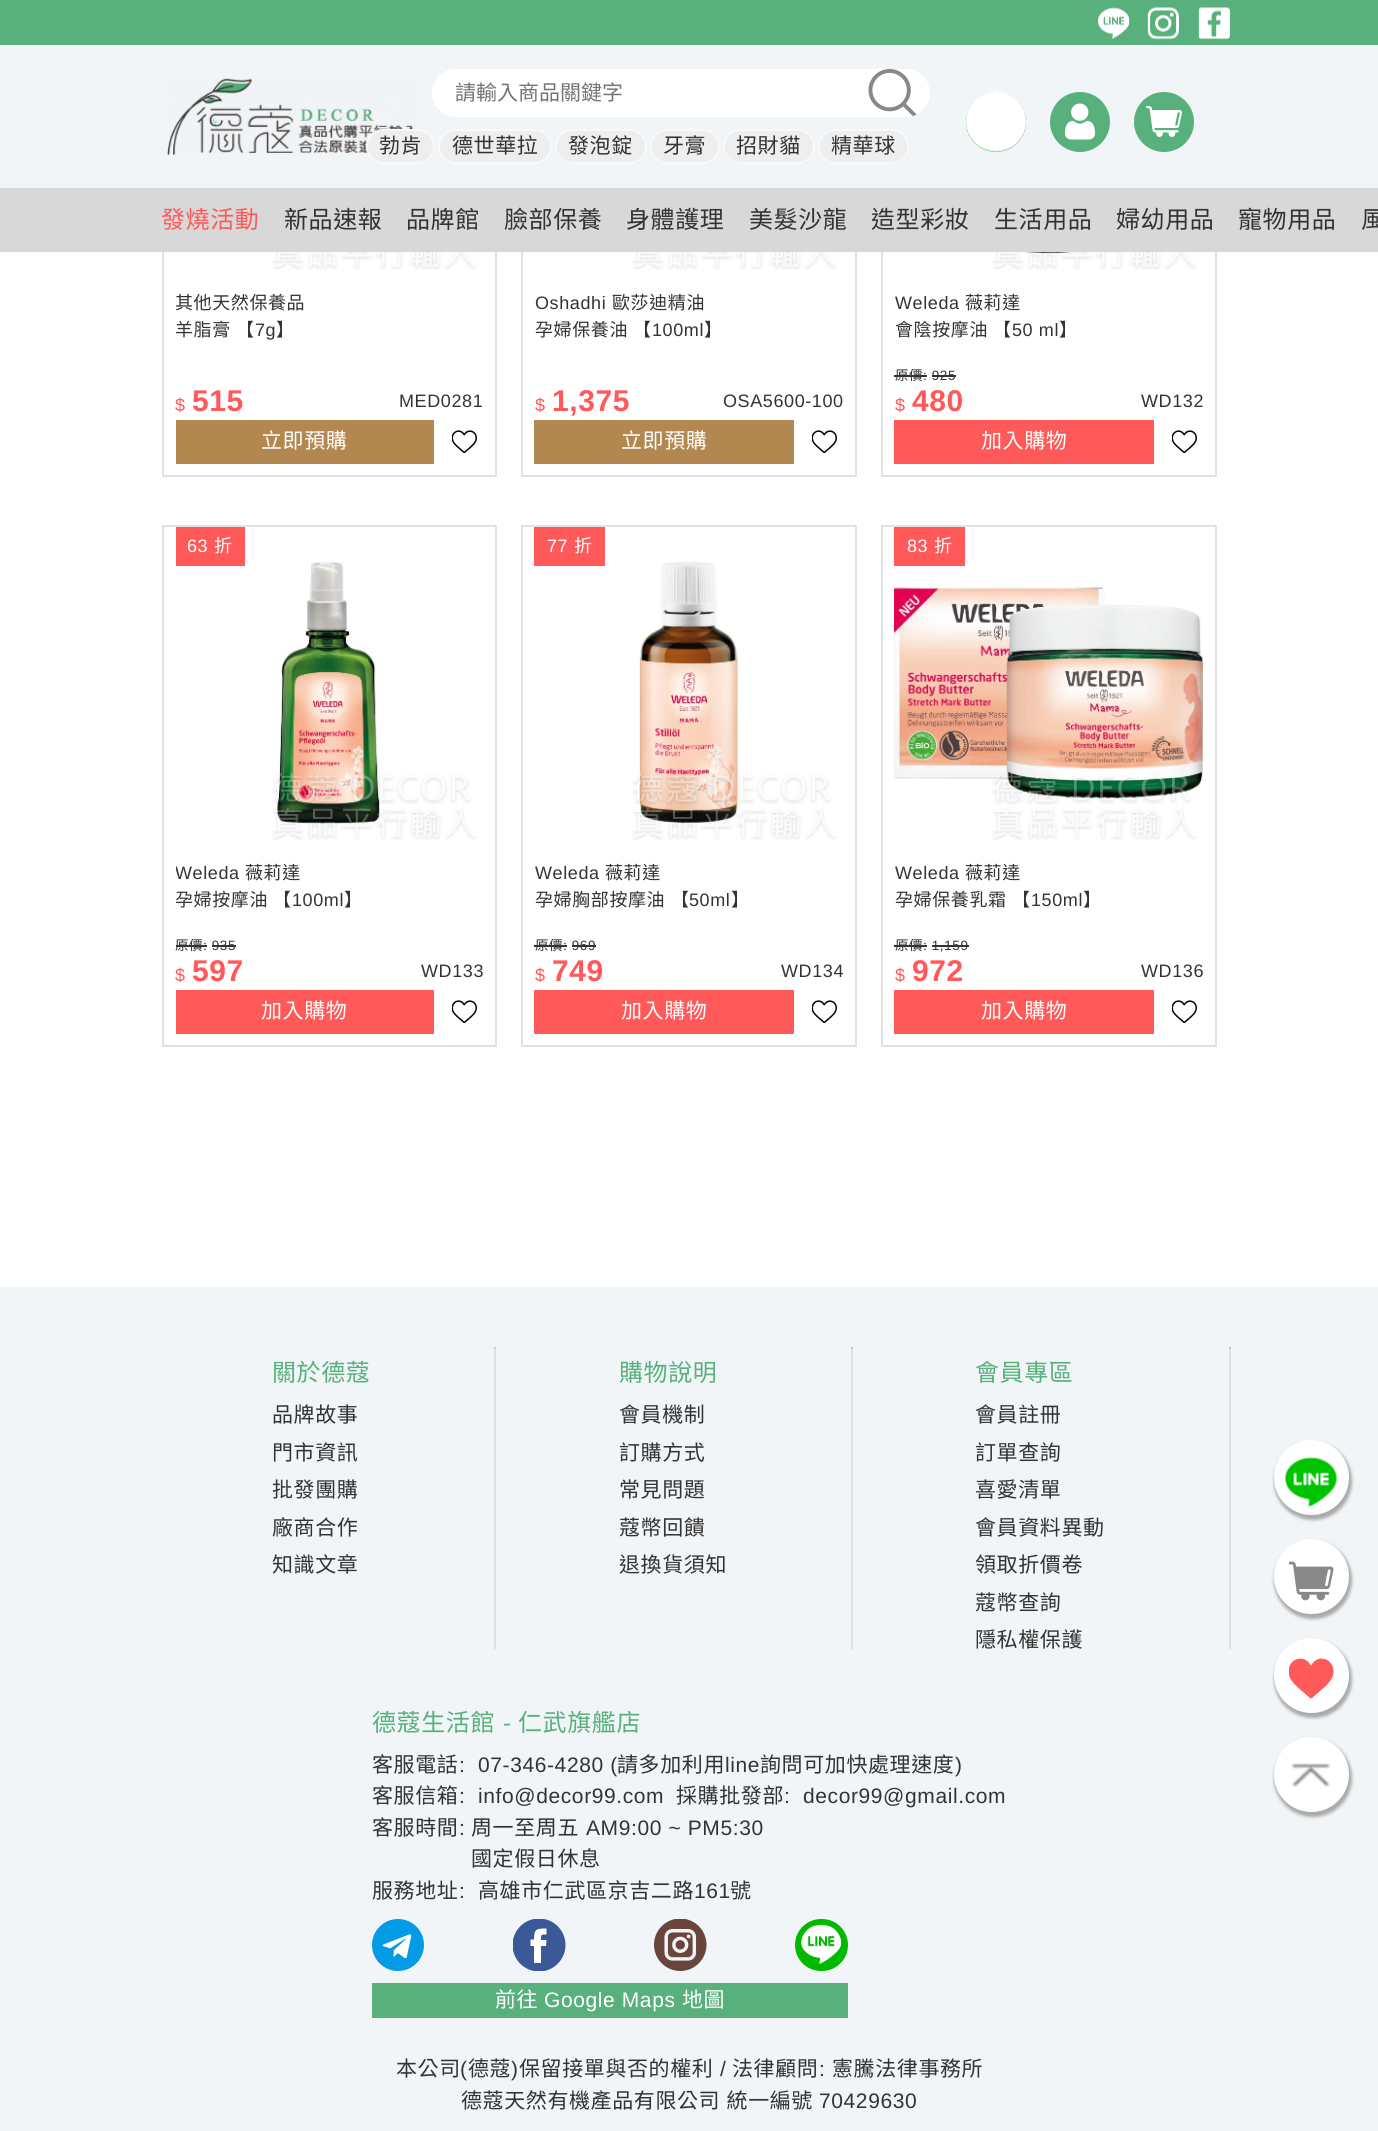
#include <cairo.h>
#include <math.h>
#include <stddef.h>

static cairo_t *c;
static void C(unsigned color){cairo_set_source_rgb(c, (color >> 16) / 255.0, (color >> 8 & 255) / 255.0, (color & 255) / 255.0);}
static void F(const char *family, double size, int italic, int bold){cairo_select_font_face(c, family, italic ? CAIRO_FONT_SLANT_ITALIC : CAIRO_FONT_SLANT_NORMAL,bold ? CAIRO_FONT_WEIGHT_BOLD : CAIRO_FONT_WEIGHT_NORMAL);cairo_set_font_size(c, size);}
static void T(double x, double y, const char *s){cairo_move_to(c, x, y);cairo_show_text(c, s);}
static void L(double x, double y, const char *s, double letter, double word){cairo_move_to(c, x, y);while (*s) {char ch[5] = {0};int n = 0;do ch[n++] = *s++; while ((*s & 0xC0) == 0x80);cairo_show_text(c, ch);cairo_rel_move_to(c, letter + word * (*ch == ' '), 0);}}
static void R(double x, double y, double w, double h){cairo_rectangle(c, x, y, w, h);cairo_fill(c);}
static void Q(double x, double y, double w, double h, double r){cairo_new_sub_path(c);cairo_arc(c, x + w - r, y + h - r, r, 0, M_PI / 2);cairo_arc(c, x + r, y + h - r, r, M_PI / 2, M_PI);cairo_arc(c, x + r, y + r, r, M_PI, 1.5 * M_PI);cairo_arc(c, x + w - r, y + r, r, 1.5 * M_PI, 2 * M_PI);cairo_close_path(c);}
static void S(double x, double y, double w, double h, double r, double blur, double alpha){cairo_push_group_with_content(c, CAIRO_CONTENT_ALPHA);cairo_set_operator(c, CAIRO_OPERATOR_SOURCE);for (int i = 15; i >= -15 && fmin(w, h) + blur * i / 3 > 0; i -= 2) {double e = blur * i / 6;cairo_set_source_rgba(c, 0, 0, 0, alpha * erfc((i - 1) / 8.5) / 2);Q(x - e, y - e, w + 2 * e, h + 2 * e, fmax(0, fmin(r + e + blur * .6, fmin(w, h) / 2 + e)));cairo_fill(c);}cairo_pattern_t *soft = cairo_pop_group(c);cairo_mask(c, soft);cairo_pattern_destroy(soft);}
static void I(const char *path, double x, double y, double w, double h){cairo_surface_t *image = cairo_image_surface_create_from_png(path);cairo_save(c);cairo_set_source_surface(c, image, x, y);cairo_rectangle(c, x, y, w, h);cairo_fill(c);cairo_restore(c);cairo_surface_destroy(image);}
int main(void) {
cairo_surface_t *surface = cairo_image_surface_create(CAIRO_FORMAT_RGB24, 1378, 2131);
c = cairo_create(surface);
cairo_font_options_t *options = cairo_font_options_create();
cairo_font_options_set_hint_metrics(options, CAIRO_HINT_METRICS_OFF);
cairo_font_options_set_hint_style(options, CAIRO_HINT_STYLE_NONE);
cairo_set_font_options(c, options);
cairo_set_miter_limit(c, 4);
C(0xffffff);
cairo_paint(c);
cairo_rectangle(c,163,-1,333,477);
C(0xdee2e6);
cairo_stroke(c);
cairo_rectangle(c,522,-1,334,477);
cairo_stroke(c);
cairo_rectangle(c,882,-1,334,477);
cairo_stroke(c);
C(0x58b07c);
R(0,0,1378,45);
I("1.png",1098,7,32,32);
I("2.png",1147,7,32,33);
I("3.png",1198,7,32,33);
C(0xf1f5f7);
R(0,45,1378,143);
I("4.png",167,78,251,77);
C(0xffffff);
Q(432,69,498,48,24);
cairo_fill(c);
F("Noto Sans CJK TC",21,0,0);
C(0x757575);
T(455,100,"請輸入商品關鍵字");
I("5.png",868,69,49,47);
C(0xeeeeee);
Q(367,130,67,33,16.5);
cairo_fill_preserve(c);
C(0xf8f9fa);
cairo_stroke(c);
C(0x333333);
L(379,153,"勃肯",.6,0);
C(0xeeeeee);
Q(439,130,112,33,16.5);
cairo_fill_preserve(c);
C(0xf8f9fa);
cairo_stroke(c);
C(0x333333);
L(452,153,"德世華拉",.6,0);
C(0xeeeeee);
Q(556,130,90,33,16.5);
cairo_fill_preserve(c);
C(0xf8f9fa);
cairo_stroke(c);
C(0x333333);
L(568,153,"發泡錠",.6,0);
C(0xeeeeee);
Q(651,130,68,33,16.5);
cairo_fill_preserve(c);
C(0xf8f9fa);
cairo_stroke(c);
C(0x333333);
L(663,153,"牙膏",.6,0);
C(0xeeeeee);
Q(724,130,90,33,16.5);
cairo_fill_preserve(c);
C(0xf8f9fa);
cairo_stroke(c);
C(0x333333);
L(736,153,"招財貓",.6,0);
C(0xeeeeee);
Q(819,130,89,33,16.5);
cairo_fill_preserve(c);
C(0xf8f9fa);
cairo_stroke(c);
C(0x333333);
L(831,153,"精華球",.6,0);
C(0x58b07c);
cairo_new_path(c);
cairo_arc(c,996,122,30,0,2 * M_PI);
cairo_fill(c);
I("6.png",966,91,60,61);
cairo_arc(c,1080,122,30,0,2 * M_PI);
cairo_fill(c);
I("7.png",1064,103,31,37);
cairo_arc(c,1164,122,30,0,2 * M_PI);
cairo_fill(c);
I("8.png",1146,106,36,31);
C(0xd8d8d8);
R(0,188,1378,64);
F("Noto Sans CJK TC",24,0,0);
C(0xff5959);
L(161,228,"發燒活動",.6,0);
C(0x333333);
L(284,228,"新品速報",.6,0);
L(406,228,"品牌館",.6,0);
L(504,228,"臉部保養",.6,0);
L(626,228,"身體護理",.6,0);
L(749,228,"美髮沙龍",.6,0);
L(871,228,"造型彩妝",.6,0);
L(994,228,"生活用品",.6,0);
L(1116,228,"婦幼用品",.6,0);
L(1238,228,"寵物用品",.6,0);
L(1361,228,"風",.6,0);
I("9.png",174,252,309,18);
cairo_save(c);
cairo_rectangle(c,176,290,307,81);
cairo_clip(c);
F("Noto Sans CJK TC",18,0,0);
L(175,309,"其他天然保養品",.6,0);
cairo_restore(c);
F("Noto Sans CJK TC",18,0,0);
L(175,336,"羊脂膏",.6,0);
L(236,336,"【",.6,0);
F("Liberation Sans",18,0,0);
L(255,336,"7g",.6,0);
F("Noto Sans CJK TC",18,0,0);
L(276,336,"】",.6,0);
F("Liberation Sans",18,0,0);
C(0xff5959);
L(175,411,"$",.6,0);
F("Liberation Sans",30,0,1);
L(192,411,"515",.6,0);
F("Liberation Sans",18,0,0);
C(0x333333);
L(399,407,"MED0281",.6,0);
C(0xb28850);
R(176,420,258,44);
F("Noto Sans CJK TC",21,0,0);
C(0xffffff);
L(261,448,"立即預購",.6,0);
I("10.png",452,430,25,24);
I("11.png",632,252,204,18);
F("Liberation Sans",18,0,0);
C(0x333333);
L(535,309,"Oshadhi",.6,0);
F("Noto Sans CJK TC",18,0,0);
L(612,309,"歐莎迪精油",.6,0);
L(535,336,"孕婦保養油",.6,0);
L(633,336,"【",.6,0);
F("Liberation Sans",18,0,0);
L(652,336,"100ml",.6,0);
F("Noto Sans CJK TC",18,0,0);
L(704,336,"】",.6,0);
F("Liberation Sans",18,0,0);
C(0xff5959);
L(535,411,"$",.6,0);
F("Liberation Sans",30,0,1);
L(552,411,"1,375",.6,0);
F("Liberation Sans",18,0,0);
C(0x333333);
L(723,407,"OSA5600-100",.6,0);
C(0xb28850);
R(534,420,260,44);
F("Noto Sans CJK TC",21,0,0);
C(0xffffff);
L(621,448,"立即預購",.6,0);
I("10.png",812,430,25,24);
I("12.png",992,252,204,18);
F("Liberation Sans",18,0,0);
C(0x333333);
L(895,309,"Weleda",.6,0);
F("Noto Sans CJK TC",18,0,0);
L(965,309,"薇莉達",.6,0);
L(895,336,"會陰按摩油",.6,0);
L(993,336,"【",.6,0);
F("Liberation Sans",18,0,0);
L(1012,336,"50 ml",.6,0);
F("Noto Sans CJK TC",18,0,0);
L(1059,336,"】",.6,0);
F("Noto Sans CJK TC",13.5,0,0);
L(895,380,"原價",.6,0);
F("Liberation Sans",13.5,0,0);
L(923,380,": 925",.6,0);
R(894,375,33,2);
R(932,375,24,2);
F("Liberation Sans",18,0,0);
C(0xff5959);
L(895,411,"$",.6,0);
F("Liberation Sans",30,0,1);
L(912,411,"480",.6,0);
F("Liberation Sans",18,0,0);
C(0x333333);
L(1141,407,"WD132",.6,0);
C(0xff5959);
R(894,420,260,44);
F("Noto Sans CJK TC",21,0,0);
C(0xffffff);
L(981,448,"加入購物",.6,0);
I("10.png",1172,430,25,24);
cairo_rectangle(c,163,526,333,520);
C(0xdee2e6);
cairo_stroke(c);
C(0xff5959);
R(176,527,69,39);
F("Liberation Sans",18,0,0);
C(0xffffff);
L(187,552,"63",.6,0);
F("Noto Sans CJK TC",18,0,0);
L(214,552,"折",.6,0);
I("13.png",272,561,204,279);
cairo_save(c);
cairo_rectangle(c,176,860,307,81);
cairo_clip(c);
F("Liberation Sans",18,0,0);
C(0x333333);
L(175,879,"Weleda",.6,0);
cairo_restore(c);
C(0x333333);
L(245,879,"薇莉達",.6,0);
cairo_save(c);
cairo_rectangle(c,176,860,307,81);
cairo_clip(c);
L(175,906,"孕婦按摩油",.6,0);
cairo_restore(c);
L(273,906,"【",.6,0);
F("Liberation Sans",18,0,0);
L(292,906,"100ml",.6,0);
F("Noto Sans CJK TC",18,0,0);
L(344,906,"】",.6,0);
F("Noto Sans CJK TC",13.5,0,0);
L(175,950,"原價",.6,0);
F("Liberation Sans",13.5,0,0);
L(203,950,": 935",.6,0);
R(176,945,31,2);
R(212,945,24,2);
F("Liberation Sans",18,0,0);
C(0xff5959);
L(175,981,"$",.6,0);
F("Liberation Sans",30,0,1);
L(192,981,"597",.6,0);
F("Liberation Sans",18,0,0);
C(0x333333);
L(421,977,"WD133",.6,0);
C(0xff5959);
R(176,990,258,44);
F("Noto Sans CJK TC",21,0,0);
C(0xffffff);
L(261,1018,"加入購物",.6,0);
I("10.png",452,1000,25,24);
cairo_rectangle(c,522,526,334,520);
C(0xdee2e6);
cairo_stroke(c);
C(0xff5959);
R(534,527,71,39);
F("Liberation Sans",18,0,0);
C(0xffffff);
L(547,552,"77",.6,0);
F("Noto Sans CJK TC",18,0,0);
L(574,552,"折",.6,0);
I("14.png",632,561,204,279);
F("Liberation Sans",18,0,0);
C(0x333333);
L(535,879,"Weleda",.6,0);
F("Noto Sans CJK TC",18,0,0);
L(605,879,"薇莉達",.6,0);
L(535,906,"孕婦胸部按摩油",.6,0);
L(671,906,"【",.6,0);
F("Liberation Sans",18,0,0);
L(689,906,"50ml",.6,0);
F("Noto Sans CJK TC",18,0,0);
L(731,906,"】",.6,0);
F("Noto Sans CJK TC",13.5,0,0);
L(535,950,"原價",.6,0);
F("Liberation Sans",13.5,0,0);
L(563,950,": 969",.6,0);
R(534,945,33,2);
R(572,945,24,2);
F("Liberation Sans",18,0,0);
C(0xff5959);
L(535,981,"$",.6,0);
F("Liberation Sans",30,0,1);
L(552,981,"749",.6,0);
F("Liberation Sans",18,0,0);
C(0x333333);
L(781,977,"WD134",.6,0);
C(0xff5959);
R(534,990,260,44);
F("Noto Sans CJK TC",21,0,0);
C(0xffffff);
L(621,1018,"加入購物",.6,0);
I("10.png",812,1000,25,24);
cairo_rectangle(c,882,526,334,520);
C(0xdee2e6);
cairo_stroke(c);
C(0xff5959);
R(894,527,71,39);
F("Liberation Sans",18,0,0);
C(0xffffff);
L(907,552,"83",.6,0);
F("Noto Sans CJK TC",18,0,0);
L(934,552,"折",.6,0);
I("15.png",894,586,309,254);
F("Liberation Sans",18,0,0);
C(0x333333);
L(895,879,"Weleda",.6,0);
F("Noto Sans CJK TC",18,0,0);
L(965,879,"薇莉達",.6,0);
L(895,906,"孕婦保養乳霜",.6,0);
L(1012,906,"【",.6,0);
F("Liberation Sans",18,0,0);
L(1031,906,"150ml",.6,0);
F("Noto Sans CJK TC",18,0,0);
L(1083,906,"】",.6,0);
F("Noto Sans CJK TC",13.5,0,0);
L(895,950,"原價",.6,0);
F("Liberation Sans",13.5,0,0);
L(923,950,": 1,159",.6,0);
R(894,945,33,2);
R(932,945,37,2);
F("Liberation Sans",18,0,0);
C(0xff5959);
L(895,981,"$",.6,0);
F("Liberation Sans",30,0,1);
L(912,981,"972",.6,0);
F("Liberation Sans",18,0,0);
C(0x333333);
L(1141,977,"WD136",.6,0);
C(0xff5959);
R(894,990,260,44);
F("Noto Sans CJK TC",21,0,0);
C(0xffffff);
L(981,1018,"加入購物",.6,0);
I("10.png",1172,1000,25,24);
C(0xf1f5f7);
R(0,1287,1378,844);
C(0xaaaaaa);
S(1274,1442,78,78,39,1.5,1);
C(0xffffff);
cairo_arc(c,1311.5,1477.5,37.5,0,2 * M_PI);
cairo_fill(c);
I("16.png",1285,1457,52,50);
C(0xaaaaaa);
S(1274,1541,78,78,39,1.5,1);
C(0xffffff);
cairo_arc(c,1311.5,1576.5,37.5,0,2 * M_PI);
cairo_fill(c);
I("17.png",1289,1561,45,40);
C(0xaaaaaa);
S(1274,1640,78,78,39,1.5,1);
C(0xffffff);
cairo_arc(c,1311.5,1675.5,37.5,0,2 * M_PI);
cairo_fill(c);
I("18.png",1289,1658,45,41);
C(0xaaaaaa);
S(1274,1739,78,78,39,1.5,1);
C(0xffffff);
cairo_arc(c,1311.5,1774.5,37.5,0,2 * M_PI);
cairo_fill(c);
I("19.png",1291,1763,40,24);
F("Noto Sans CJK TC",24,0,0);
C(0x58b07c);
L(272,1381,"關於德蔻",.6,0);
F("Noto Sans CJK TC",21,0,0);
C(0x333333);
L(272,1422,"品牌故事",.6,0);
L(272,1460,"門市資訊",.6,0);
L(272,1497,"批發團購",.6,0);
L(272,1535,"廠商合作",.6,0);
L(272,1572,"知識文章",.6,0);
C(0xdfdfdf);
R(494,1347,2,302);
C(0xc9c9c9);
R(494,1347,2,2);
F("Noto Sans CJK TC",24,0,0);
C(0x58b07c);
L(619,1381,"購物說明",.6,0);
F("Noto Sans CJK TC",21,0,0);
C(0x333333);
L(619,1422,"會員機制",.6,0);
L(619,1460,"訂購方式",.6,0);
L(619,1497,"常見問題",.6,0);
L(619,1535,"蔻幣回饋",.6,0);
L(619,1572,"退換貨須知",.6,0);
C(0xdfdfdf);
R(851,1347,2,302);
C(0xc9c9c9);
R(851,1347,2,2);
F("Noto Sans CJK TC",24,0,0);
C(0x58b07c);
L(975,1381,"會員專區",.6,0);
F("Noto Sans CJK TC",21,0,0);
C(0x333333);
L(975,1422,"會員註冊",.6,0);
L(975,1460,"訂單查詢",.6,0);
L(975,1497,"喜愛清單",.6,0);
L(975,1535,"會員資料異動",.6,0);
L(975,1572,"領取折價卷",.6,0);
L(975,1610,"蔻幣查詢",.6,0);
L(975,1647,"隱私權保護",.6,0);
C(0xdfdfdf);
R(1229,1347,2,302);
C(0xc9c9c9);
R(1229,1347,2,2);
F("Noto Sans CJK TC",24,0,0);
C(0x58b07c);
L(372,1731,"德蔻生活館",.6,0);
F("Liberation Sans",24,0,0);
L(503,1731,"-",.6,0);
F("Noto Sans CJK TC",24,0,0);
L(518,1731,"仁武旗艦店",.6,0);
F("Noto Sans CJK TC",21,0,0);
C(0x333333);
L(372,1772,"客服電話",.6,0);
F("Liberation Sans",21,0,0);
L(459,1772,":",.6,0);
L(478,1772,"07-346-4280 (",.6,0);
F("Noto Sans CJK TC",21,0,0);
L(617,1772,"請多加利用",.6,0);
F("Liberation Sans",21,0,0);
L(725,1772,"line",.6,0);
F("Noto Sans CJK TC",21,0,0);
L(760,1772,"詢問可加快處理速度",.6,0);
F("Liberation Sans",21,0,0);
L(955,1772,")",.6,0);
F("Noto Sans CJK TC",21,0,0);
L(372,1803,"客服信箱",.6,0);
F("Liberation Sans",21,0,0);
L(459,1803,":",.6,0);
L(478,1803,"info@decor99.com",.6,0);
F("Noto Sans CJK TC",21,0,0);
L(676,1803,"採購批發部",.6,0);
F("Liberation Sans",21,0,0);
L(784,1803,":",.6,0);
L(803,1803,"decor99@gmail.com",.6,0);
F("Noto Sans CJK TC",21,0,0);
L(372,1835,"客服時間",.6,0);
F("Liberation Sans",21,0,0);
L(459,1835,":",.6,0);
F("Noto Sans CJK TC",21,0,0);
L(471,1835,"周一至周五",.6,0);
F("Liberation Sans",21,0,0);
L(586,1835,"AM9:00 ~ PM5:30",.6,0);
F("Noto Sans CJK TC",21,0,0);
L(471,1866,"國定假日休息",.6,0);
L(372,1898,"服務地址",.6,0);
F("Liberation Sans",21,0,0);
L(459,1898,":",.6,0);
F("Noto Sans CJK TC",21,0,0);
L(478,1898,"高雄市仁武區京吉二路",.6,0);
F("Liberation Sans",21,0,0);
L(694,1898,"161",.6,0);
F("Noto Sans CJK TC",21,0,0);
L(730,1898,"號",.6,0);
I("20.png",372,1919,52,52);
cairo_save(c);
cairo_rectangle(c,513,1919,53,52);
cairo_clip(c);
C(0x3b5998);
cairo_arc(c,539,1945,26.5,0,2 * M_PI);
cairo_fill(c);
cairo_restore(c);
C(0xffffff);
cairo_new_path(c);
cairo_move_to(c,546,1946);
cairo_line_to(c,541,1946);
cairo_line_to(c,541,1963);
cairo_line_to(c,534,1963);
cairo_line_to(c,534,1946);
cairo_line_to(c,530.5,1946);
cairo_line_to(c,530.5,1939.5);
cairo_line_to(c,534,1939.5);
cairo_curve_to(c,534,1929,536,1928.5,546.5,1928.5);
cairo_line_to(c,546.5,1934.5);
cairo_curve_to(c,541,1934.5,541,1934,541,1940);
cairo_line_to(c,546.5,1940);
cairo_close_path(c);
cairo_fill(c);
I("21.png",654,1919,53,52);
C(0x00b900);
Q(795,1919,53,52,26);
cairo_fill(c);
I("22.png",801,1924,41,40);
C(0x58b07c);
R(372,1983,476,35);
C(0xffffff);
L(495,2007,"前往",.6,0);
F("Liberation Sans",21,0,0);
L(544,2007,"Google Maps",.6,0);
F("Noto Sans CJK TC",21,0,0);
L(682,2007,"地圖",.6,0);
C(0x333333);
L(396,2076,"本公司",.6,0);
F("Liberation Sans",21,0,0);
L(460,2076,"(",.6,0);
F("Noto Sans CJK TC",21,0,0);
L(468,2076,"德蔻",.6,0);
F("Liberation Sans",21,0,0);
L(511,2076,")",.6,0);
F("Noto Sans CJK TC",21,0,0);
L(519,2076,"保留接單與否的權利",.6,0);
F("Liberation Sans",21,0,0);
L(720,2076,"/",.6,0);
F("Noto Sans CJK TC",21,0,0);
L(732,2076,"法律顧問",.6,0);
F("Liberation Sans",21,0,0);
L(819,2076,":",.6,0);
F("Noto Sans CJK TC",21,0,0);
L(832,2076,"憲騰法律事務所",.6,0);
L(461,2108,"德蔻天然有機產品有限公司 統一編號",.6,1);
F("Liberation Sans",21,0,0);
L(819,2108,"70429630",.6,0);
cairo_surface_write_to_png(surface, "o.png");
cairo_font_options_destroy(options);
cairo_destroy(c);
cairo_surface_destroy(surface);
return 0;
}
